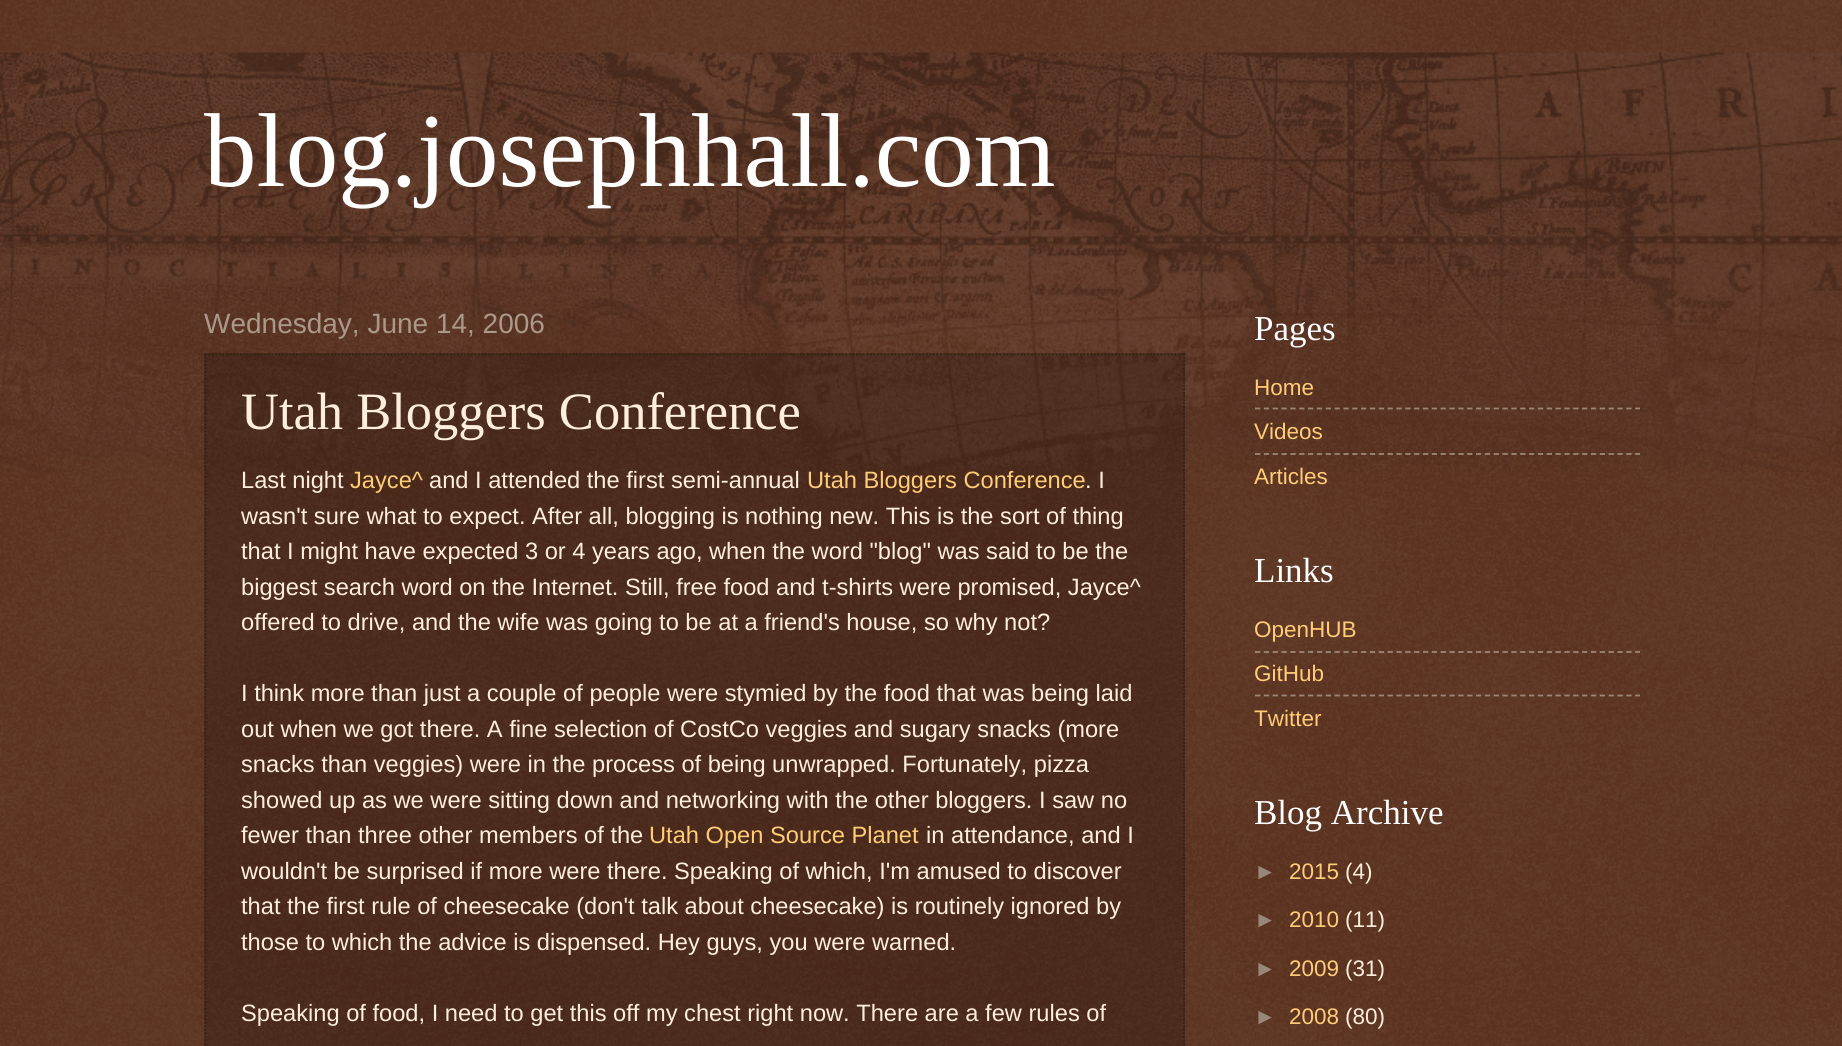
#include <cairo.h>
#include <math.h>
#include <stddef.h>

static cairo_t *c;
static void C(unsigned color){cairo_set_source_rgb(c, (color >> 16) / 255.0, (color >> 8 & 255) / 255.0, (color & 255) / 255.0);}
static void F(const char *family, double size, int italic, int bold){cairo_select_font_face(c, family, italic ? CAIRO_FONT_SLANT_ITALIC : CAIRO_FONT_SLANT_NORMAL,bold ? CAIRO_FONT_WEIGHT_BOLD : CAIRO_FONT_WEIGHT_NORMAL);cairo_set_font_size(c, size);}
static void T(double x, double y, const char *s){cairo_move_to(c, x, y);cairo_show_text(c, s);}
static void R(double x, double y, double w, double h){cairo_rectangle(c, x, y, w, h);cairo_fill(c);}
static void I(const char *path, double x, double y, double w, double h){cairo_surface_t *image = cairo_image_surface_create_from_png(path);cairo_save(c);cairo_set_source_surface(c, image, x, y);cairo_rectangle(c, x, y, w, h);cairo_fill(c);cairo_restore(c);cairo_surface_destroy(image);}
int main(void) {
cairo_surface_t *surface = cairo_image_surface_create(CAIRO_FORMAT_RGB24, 1842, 1046);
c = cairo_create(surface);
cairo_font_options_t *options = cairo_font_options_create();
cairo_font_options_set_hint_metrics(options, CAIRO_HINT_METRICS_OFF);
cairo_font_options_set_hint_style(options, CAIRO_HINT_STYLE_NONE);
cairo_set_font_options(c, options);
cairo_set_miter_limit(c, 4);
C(0x441500);
cairo_paint(c);
I("1.png",0,0,1842,1046);
I("2.png",0,52,1842,420);
F("Liberation Serif",105,0,0);
C(0xffffff);
T(204,186,"blog.josephhall.com");
F("Liberation Sans",28,0,0);
C(0xaa9988);
T(204,333,"Wednesday, June 14, 2006");
cairo_set_source_rgba(c,0,0,0,0.2);
R(204,353,981,693);
cairo_new_path(c);
cairo_move_to(c,205,354.5);
cairo_line_to(c,1185,354.5);
C(0x332211);
cairo_set_line_width(c,1.8);
cairo_set_dash(c,(double[]){1.75,1.75},2,0);
cairo_stroke(c);
cairo_new_path(c);
cairo_move_to(c,1184,353.5);
cairo_line_to(c,1184,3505);
cairo_stroke(c);
cairo_new_path(c);
cairo_move_to(c,205.5,353.5);
cairo_line_to(c,205.5,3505);
cairo_stroke(c);
F("Liberation Serif",52.5,0,0);
C(0xffeedd);
T(241,429,"Utah Bloggers Conference");
F("Liberation Sans",23.65,0,0);
T(241,488,"Last night");
C(0xffcc77);
T(350,488,"Jayce^");
C(0xffeedd);
T(429,488,"and I attended the first semi-annual");
C(0xffcc77);
T(807,488,"Utah Bloggers Conference");
C(0xffeedd);
T(1085,488,". I");
T(241,524,"wasn't sure what to expect. After all, blogging is nothing new. This is the sort of thing");
T(241,559,"that I might have expected 3 or 4 years ago, when the word \"blog\" was said to be the");
T(241,595,"biggest search word on the Internet. Still, free food and t-shirts were promised, Jayce^");
T(241,630,"offered to drive, and the wife was going to be at a friend's house, so why not?");
T(241,701,"I think more than just a couple of people were stymied by the food that was being laid");
T(241,737,"out when we got there. A fine selection of CostCo veggies and sugary snacks (more");
T(241,772,"snacks than veggies) were in the process of being unwrapped. Fortunately, pizza");
T(241,808,"showed up as we were sitting down and networking with the other bloggers. I saw no");
T(241,843,"fewer than three other members of the");
C(0xffcc77);
T(649,843,"Utah Open Source Planet");
C(0xffeedd);
T(926,843,"in attendance, and I");
T(241,879,"wouldn't be surprised if more were there. Speaking of which, I'm amused to discover");
T(241,914,"that the first rule of cheesecake (don't talk about cheesecake) is routinely ignored by");
T(241,950,"those to which the advice is dispensed. Hey guys, you were warned.");
T(241,1021,"Speaking of food, I need to get this off my chest right now. There are a few rules of");
F("Liberation Serif",35,0,0);
C(0xffffff);
T(1254,340,"Pages");
F("Liberation Sans",22.5,0,0);
C(0xffcc77);
T(1254,395,"Home");
cairo_new_path(c);
cairo_move_to(c,1255,408.5);
cairo_line_to(c,1640,408.5);
C(0x998877);
cairo_set_dash(c,(double[]){5.25,3.59},2,0);
cairo_stroke(c);
C(0xffcc77);
T(1254,439,"Videos");
cairo_new_path(c);
cairo_move_to(c,1255,454);
cairo_line_to(c,1640,454);
C(0x998877);
cairo_stroke(c);
C(0xffcc77);
T(1254,484,"Articles");
F("Liberation Serif",35,0,0);
C(0xffffff);
T(1254,582,"Links");
F("Liberation Sans",22.5,0,0);
C(0xffcc77);
T(1254,637,"OpenHUB");
cairo_new_path(c);
cairo_move_to(c,1255,652);
cairo_line_to(c,1640,652);
C(0x998877);
cairo_stroke(c);
C(0xffcc77);
T(1254,681,"GitHub");
cairo_new_path(c);
cairo_move_to(c,1255,695.5);
cairo_line_to(c,1640,695.5);
C(0x998877);
cairo_stroke(c);
C(0xffcc77);
T(1254,726,"Twitter");
F("Liberation Serif",35,0,0);
C(0xffffff);
T(1254,824,"Blog Archive");
F("Liberation Sans",22.5,0,0);
C(0x998877);
T(1254,879,"►");
C(0xffcc77);
T(1289,879,"2015");
C(0xffeedd);
T(1345,879,"(4)");
C(0x998877);
T(1254,927,"►");
C(0xffcc77);
T(1289,927,"2010");
C(0xffeedd);
T(1345,927,"(11)");
C(0x998877);
T(1254,976,"►");
C(0xffcc77);
T(1289,976,"2009");
C(0xffeedd);
T(1345,976,"(31)");
C(0x998877);
T(1254,1024,"►");
C(0xffcc77);
T(1289,1024,"2008");
C(0xffeedd);
T(1345,1024,"(80)");
cairo_surface_write_to_png(surface, "o.png");
cairo_font_options_destroy(options);
cairo_destroy(c);
cairo_surface_destroy(surface);
return 0;
}
